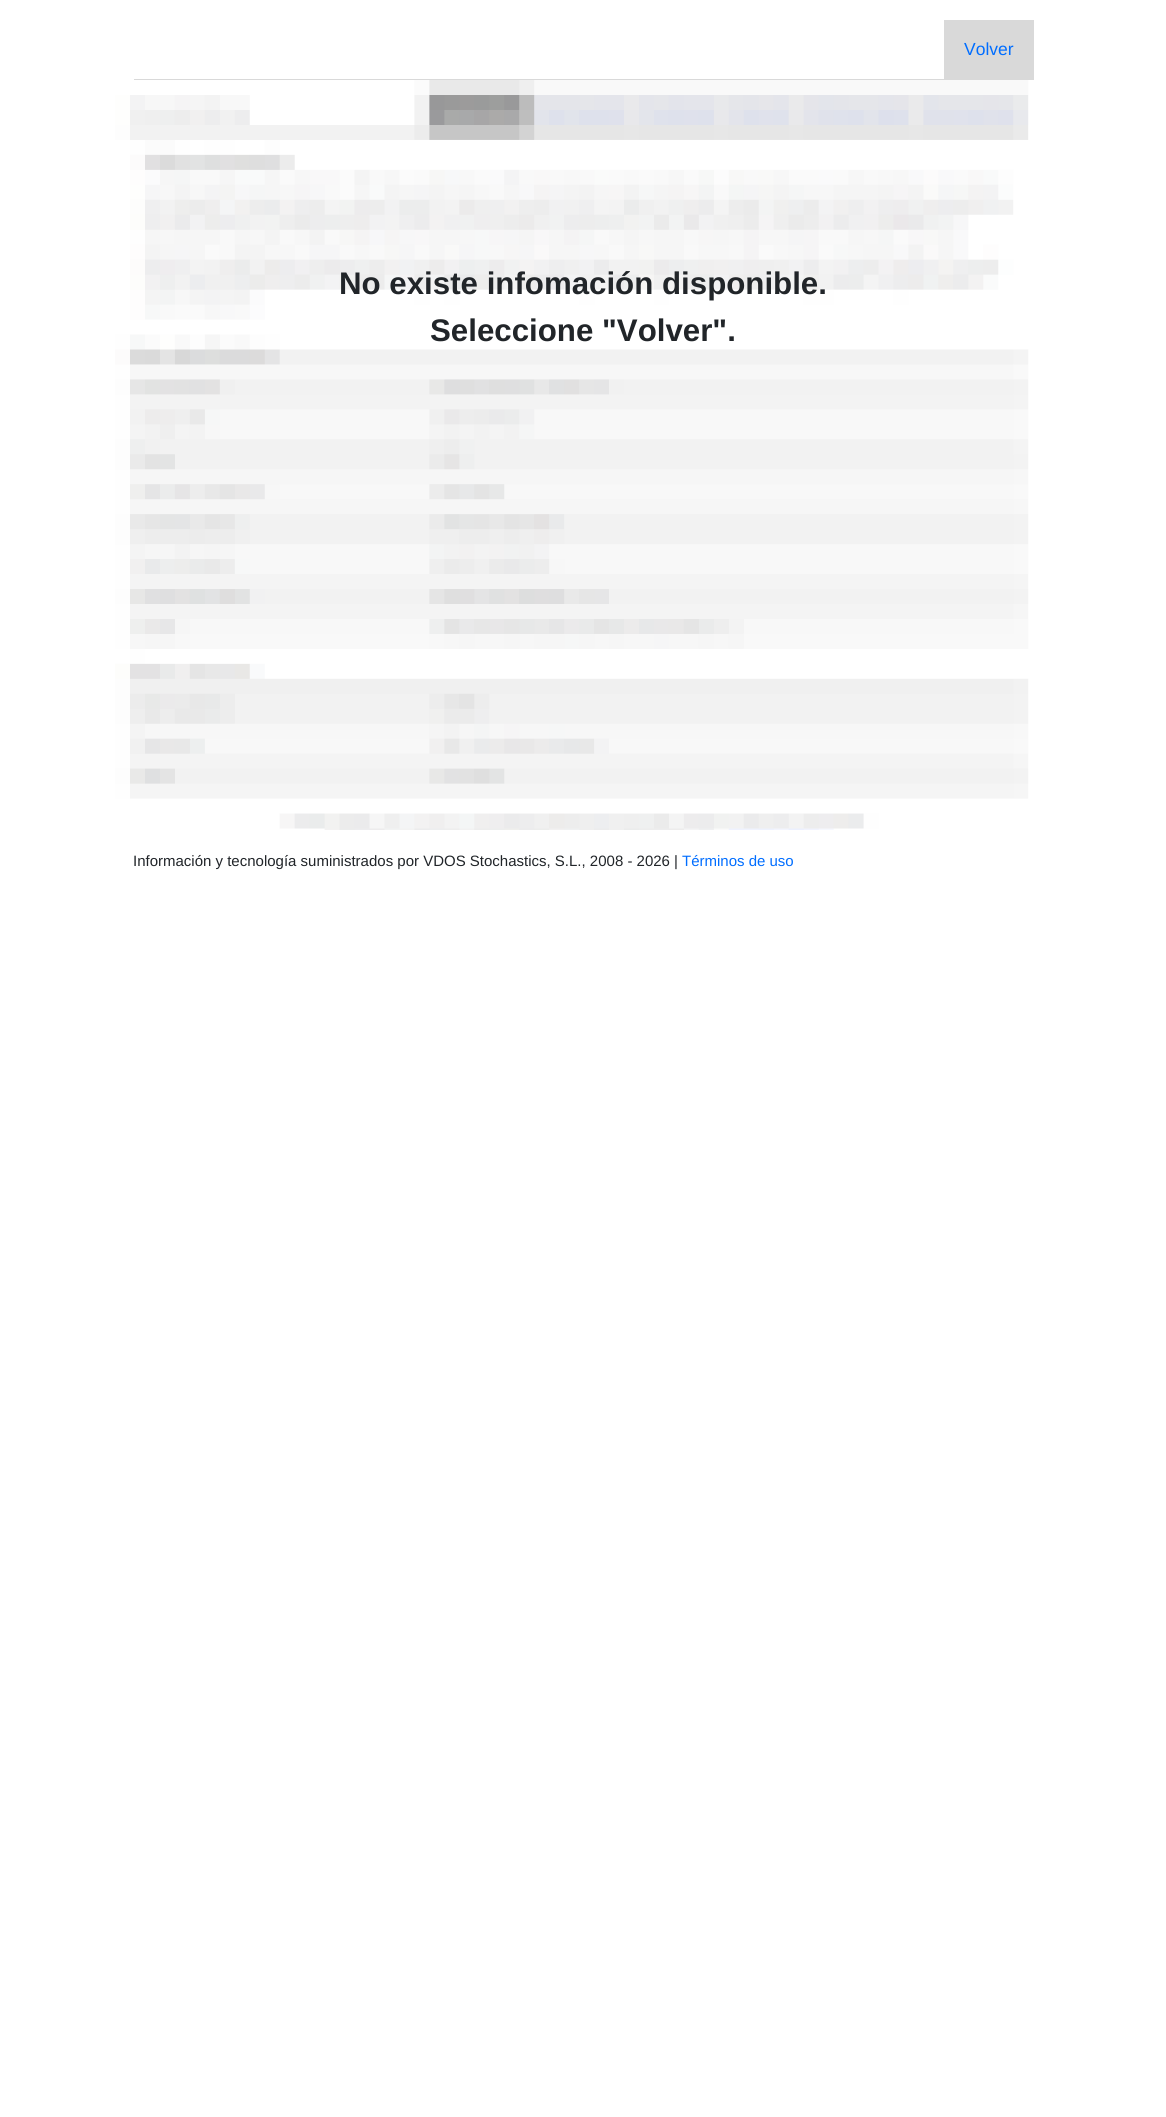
#include <cairo.h>
#include <math.h>
#include <stddef.h>

static cairo_t *c;
static void C(unsigned color){cairo_set_source_rgb(c, (color >> 16) / 255.0, (color >> 8 & 255) / 255.0, (color & 255) / 255.0);}
static void F(const char *family, double size, int italic, int bold){cairo_select_font_face(c, family, italic ? CAIRO_FONT_SLANT_ITALIC : CAIRO_FONT_SLANT_NORMAL,bold ? CAIRO_FONT_WEIGHT_BOLD : CAIRO_FONT_WEIGHT_NORMAL);cairo_set_font_size(c, size);}
static void T(double x, double y, const char *s){cairo_move_to(c, x, y);cairo_show_text(c, s);}
static void R(double x, double y, double w, double h){cairo_rectangle(c, x, y, w, h);cairo_fill(c);}
static void I(const char *path, double x, double y, double w, double h){cairo_surface_t *image = cairo_image_surface_create_from_png(path);cairo_save(c);cairo_set_source_surface(c, image, x, y);cairo_rectangle(c, x, y, w, h);cairo_fill(c);cairo_restore(c);cairo_surface_destroy(image);}
int main(void) {
cairo_surface_t *surface = cairo_image_surface_create(CAIRO_FORMAT_RGB24, 1166, 2117);
c = cairo_create(surface);
cairo_font_options_t *options = cairo_font_options_create();
cairo_font_options_set_hint_metrics(options, CAIRO_HINT_METRICS_OFF);
cairo_font_options_set_hint_style(options, CAIRO_HINT_STYLE_NONE);
cairo_set_font_options(c, options);
cairo_set_miter_limit(c, 4);
C(0xffffff);
cairo_paint(c);
C(0xd9d9d9);
R(944,20,90,59);
F("Liberation Sans",17.5,0,0);
C(0x006dff);
T(964,55,"Volver");
C(0xd9d9d9);
R(134,79,900,1);
I("1.png",115,80,914,750);
F("Liberation Sans",31.25,0,1);
C(0x212529);
T(339,294,"No existe infomación disponible.");
T(430,341,"Seleccione \"Volver\".");
F("Liberation Sans",15,0,0);
T(133,866,"Información y tecnología suministrados por VDOS Stochastics, S.L., 2008 - 2026 |");
C(0x006dff);
T(682,866,"Términos de uso");
cairo_surface_write_to_png(surface, "o.png");
cairo_font_options_destroy(options);
cairo_destroy(c);
cairo_surface_destroy(surface);
return 0;
}
